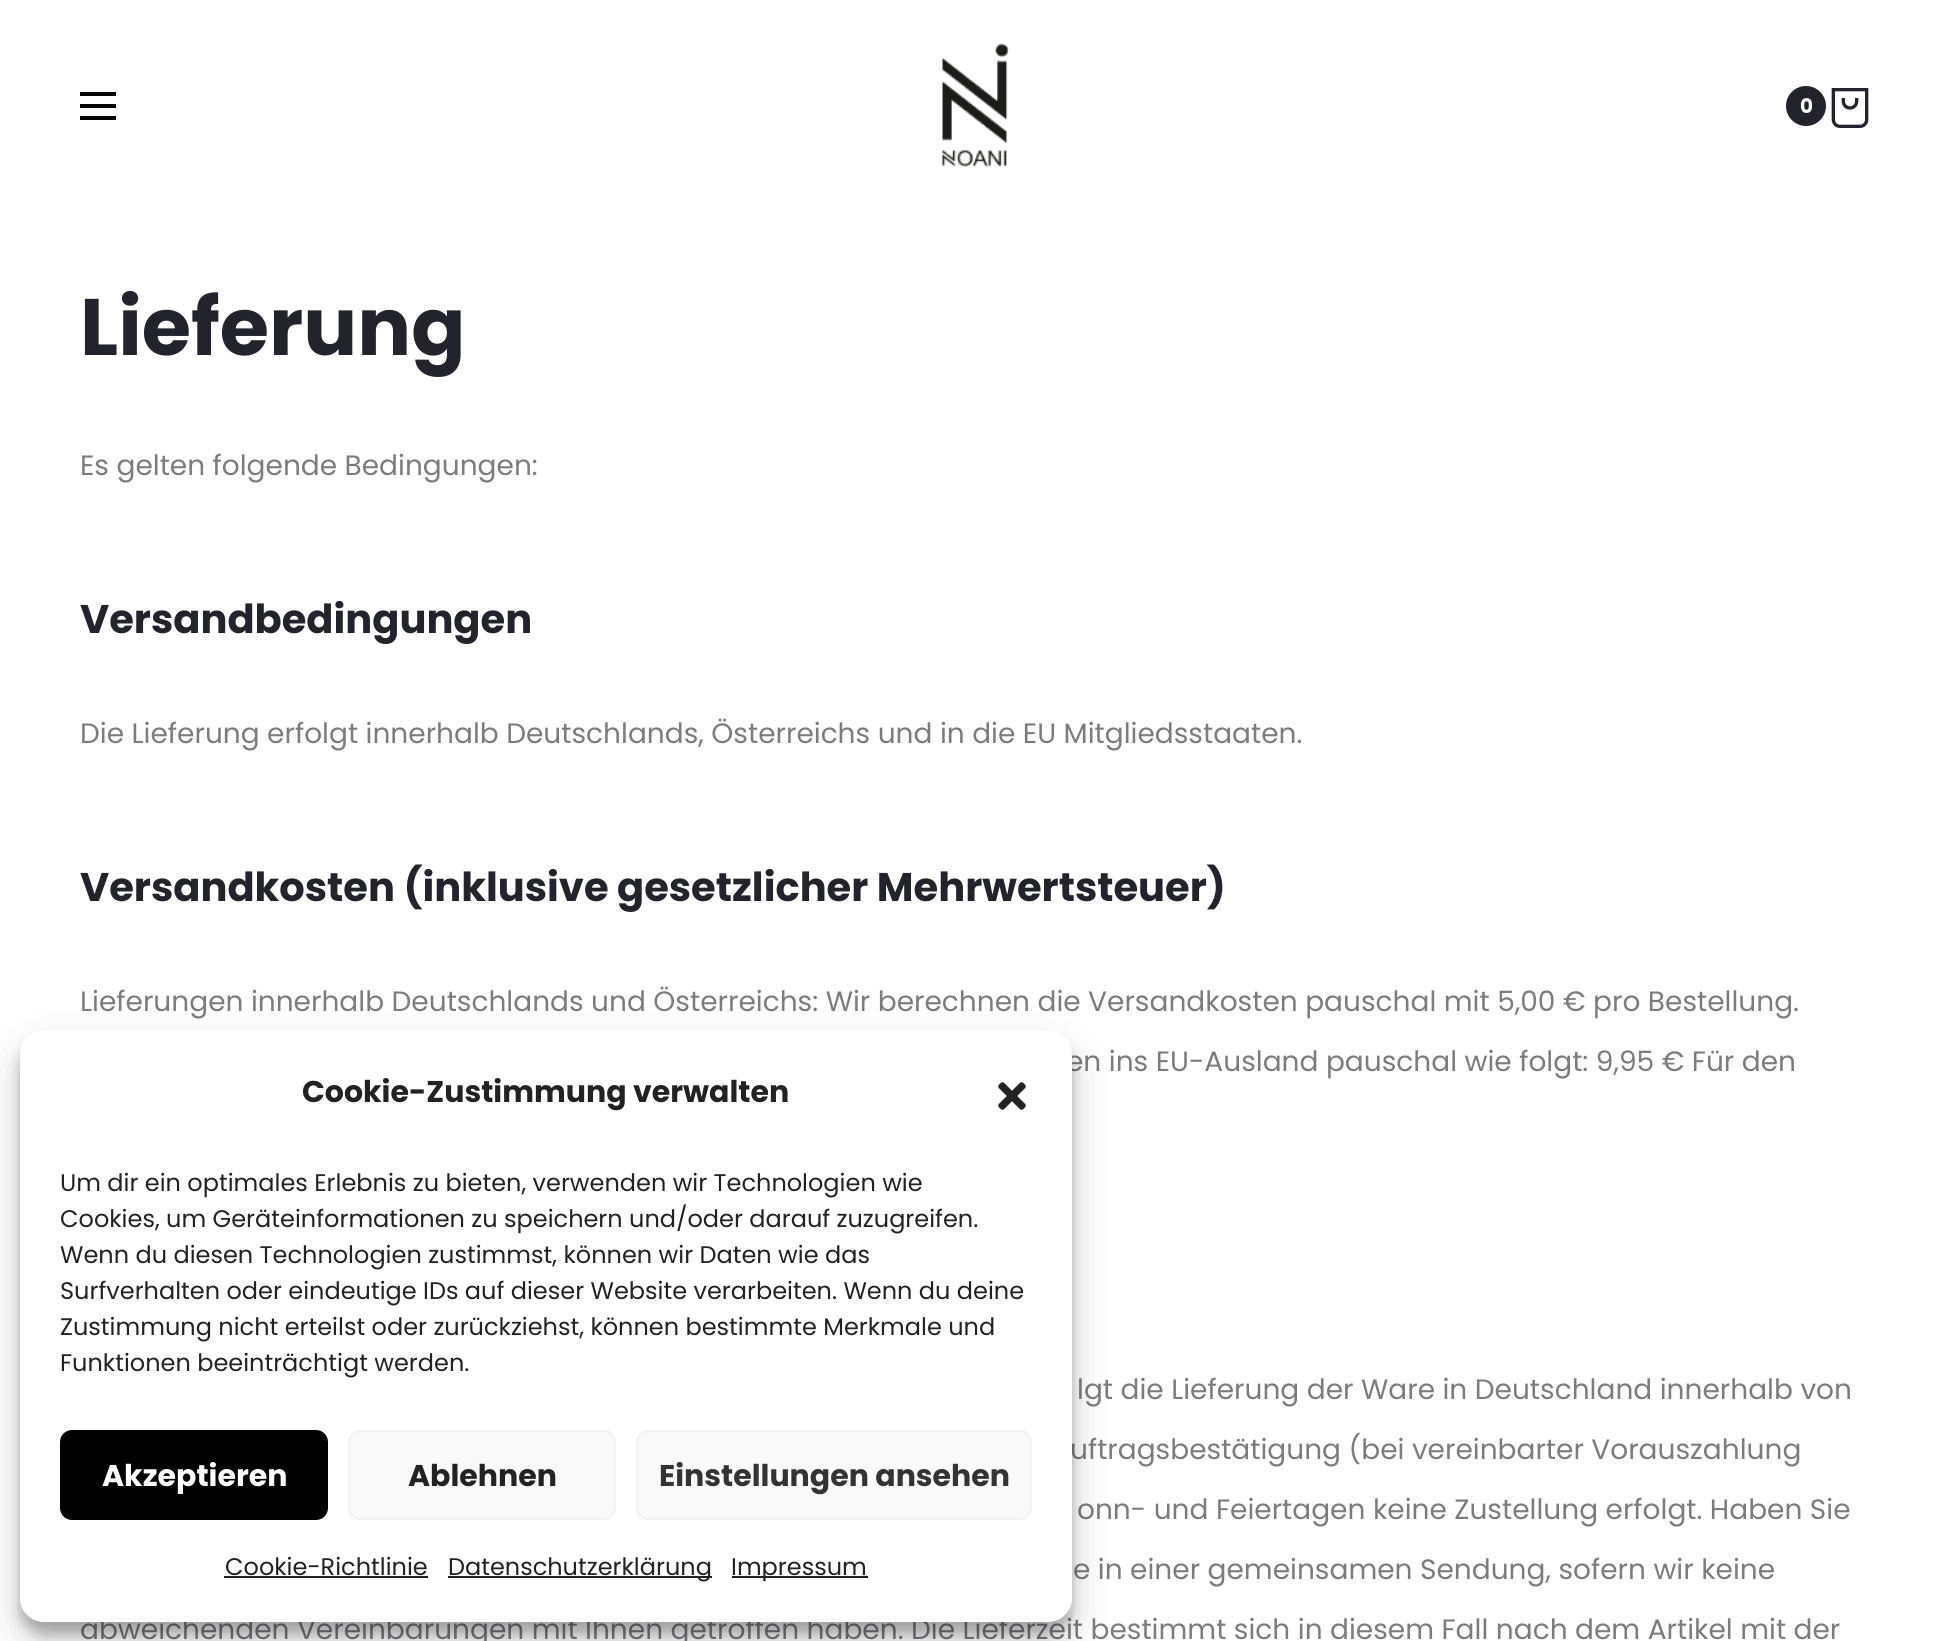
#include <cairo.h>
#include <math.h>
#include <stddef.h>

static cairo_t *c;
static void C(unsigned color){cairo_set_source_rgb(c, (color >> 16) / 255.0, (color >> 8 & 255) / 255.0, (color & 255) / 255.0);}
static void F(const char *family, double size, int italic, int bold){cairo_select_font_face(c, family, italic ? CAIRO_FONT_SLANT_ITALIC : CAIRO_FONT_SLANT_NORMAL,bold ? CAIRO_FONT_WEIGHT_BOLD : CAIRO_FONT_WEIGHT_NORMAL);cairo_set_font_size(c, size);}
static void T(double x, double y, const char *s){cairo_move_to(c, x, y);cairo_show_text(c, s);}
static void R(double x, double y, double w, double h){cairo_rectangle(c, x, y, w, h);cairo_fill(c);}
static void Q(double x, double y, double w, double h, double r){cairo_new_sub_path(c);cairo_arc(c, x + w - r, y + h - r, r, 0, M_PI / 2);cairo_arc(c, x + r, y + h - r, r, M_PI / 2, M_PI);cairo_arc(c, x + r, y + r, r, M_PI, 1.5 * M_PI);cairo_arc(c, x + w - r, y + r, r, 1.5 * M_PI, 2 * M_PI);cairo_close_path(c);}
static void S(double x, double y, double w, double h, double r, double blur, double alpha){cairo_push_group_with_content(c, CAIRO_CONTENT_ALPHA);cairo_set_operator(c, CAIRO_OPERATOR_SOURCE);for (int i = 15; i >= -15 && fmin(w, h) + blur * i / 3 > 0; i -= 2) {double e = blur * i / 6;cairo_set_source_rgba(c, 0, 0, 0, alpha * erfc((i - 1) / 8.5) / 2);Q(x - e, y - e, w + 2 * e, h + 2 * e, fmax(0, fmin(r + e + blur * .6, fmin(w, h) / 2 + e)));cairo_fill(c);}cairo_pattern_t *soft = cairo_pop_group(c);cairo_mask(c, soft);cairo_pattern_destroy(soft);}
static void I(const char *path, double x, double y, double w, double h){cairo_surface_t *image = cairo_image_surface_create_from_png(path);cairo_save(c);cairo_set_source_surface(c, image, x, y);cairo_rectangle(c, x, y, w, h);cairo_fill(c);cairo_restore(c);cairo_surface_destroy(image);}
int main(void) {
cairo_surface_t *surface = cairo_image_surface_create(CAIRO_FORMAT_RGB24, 1949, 1641);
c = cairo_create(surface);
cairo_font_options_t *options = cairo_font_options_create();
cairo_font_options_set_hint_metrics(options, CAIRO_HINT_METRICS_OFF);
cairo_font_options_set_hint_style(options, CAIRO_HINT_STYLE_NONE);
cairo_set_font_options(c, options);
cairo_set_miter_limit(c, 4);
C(0xffffff);
cairo_paint(c);
C(0x000000);
R(80,104,36,4);
R(80,92,36,4);
R(80,116,36,4);
I("1.png",942,43,67,124);
C(0x23232c);
cairo_arc(c,1806,106,20,0,2 * M_PI);
cairo_fill(c);
F("Poppins",20,0,1);
C(0xffffff);
T(1800,113,"0");
I("2.png",1831,88,38,40);
F("Poppins",80,0,1);
C(0x23232c);
T(80,355,"Lieferung");
F("Poppins",28,0,0);
C(0x7c7c80);
T(80,475,"Es gelten folgende Bedingungen:");
F("Poppins",40,0,1);
C(0x23232c);
T(80,633,"Versandbedingungen");
F("Poppins",28,0,0);
C(0x7c7c80);
T(80,743,"Die Lieferung erfolgt innerhalb Deutschlands, Österreichs und in die EU Mitgliedsstaaten.");
F("Poppins",40,0,1);
C(0x23232c);
T(80,901,"Versandkosten (inklusive gesetzlicher Mehrwertsteuer)");
F("Poppins",28,0,0);
C(0x7c7c80);
T(80,1011,"Lieferungen innerhalb Deutschlands und Österreichs: Wir berechnen die Versandkosten pauschal mit 5,00 € pro Bestellung.");
T(1066,1071,"en ins EU-Ausland pauschal wie folgt: 9,95 € Für den");
T(1077,1399,"lgt die Lieferung der Ware in Deutschland innerhalb von");
T(1070,1459,"uftragsbestätigung (bei vereinbarter Vorauszahlung");
T(1077,1519,"onn- und Feiertagen keine Zustellung erfolgt. Haben Sie");
T(1073,1579,"e in einer gemeinsamen Sendung, sofern wir keine");
T(80,1639,"abweichenden Vereinbarungen mit Ihnen getroffen haben. Die Lieferzeit bestimmt sich in diesem Fall nach dem Artikel mit der");
C(0x000000);
S(20,1042,1052,592,24,6,.23);
S(20,1050,1052,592,24,20,.19);
C(0xffffff);
Q(20,1030,1052,592,24);
cairo_fill(c);
F("Poppins",30,0,1);
C(0x222222);
T(302,1102,"Cookie-Zustimmung verwalten");
I("3.png",998,1082,28,28);
F("Poppins",24,0,0);
T(60,1191,"Um dir ein optimales Erlebnis zu bieten, verwenden wir Technologien wie");
T(60,1227,"Cookies, um Geräteinformationen zu speichern und/oder darauf zuzugreifen.");
T(60,1263,"Wenn du diesen Technologien zustimmst, können wir Daten wie das");
T(60,1299,"Surfverhalten oder eindeutige IDs auf dieser Website verarbeiten. Wenn du deine");
T(60,1335,"Zustimmung nicht erteilst oder zurückziehst, können bestimmte Merkmale und");
T(60,1371,"Funktionen beeinträchtigt werden.");
C(0x000000);
Q(61,1431,266,88,11);
cairo_fill_preserve(c);
cairo_stroke(c);
F("Poppins",30,0,1);
C(0xffffff);
T(102,1486,"Akzeptieren");
C(0xf9f9f9);
Q(349,1431,266,88,11);
cairo_fill_preserve(c);
C(0xf2f2f2);
cairo_stroke(c);
C(0x222222);
T(408,1486,"Ablehnen");
C(0xf9f9f9);
Q(637,1431,394,88,11);
cairo_fill_preserve(c);
C(0xf2f2f2);
cairo_stroke(c);
C(0x333333);
T(659,1486,"Einstellungen ansehen");
F("Poppins",24,0,0);
C(0x222222);
T(225,1575,"Cookie-Richtlinie");
R(224,1576,204,2);
R(448,1576,264,2);
T(448,1575,"Datenschutzerklärung");
R(732,1576,136,2);
T(731,1575,"Impressum");
cairo_surface_write_to_png(surface, "o.png");
cairo_font_options_destroy(options);
cairo_destroy(c);
cairo_surface_destroy(surface);
return 0;
}
